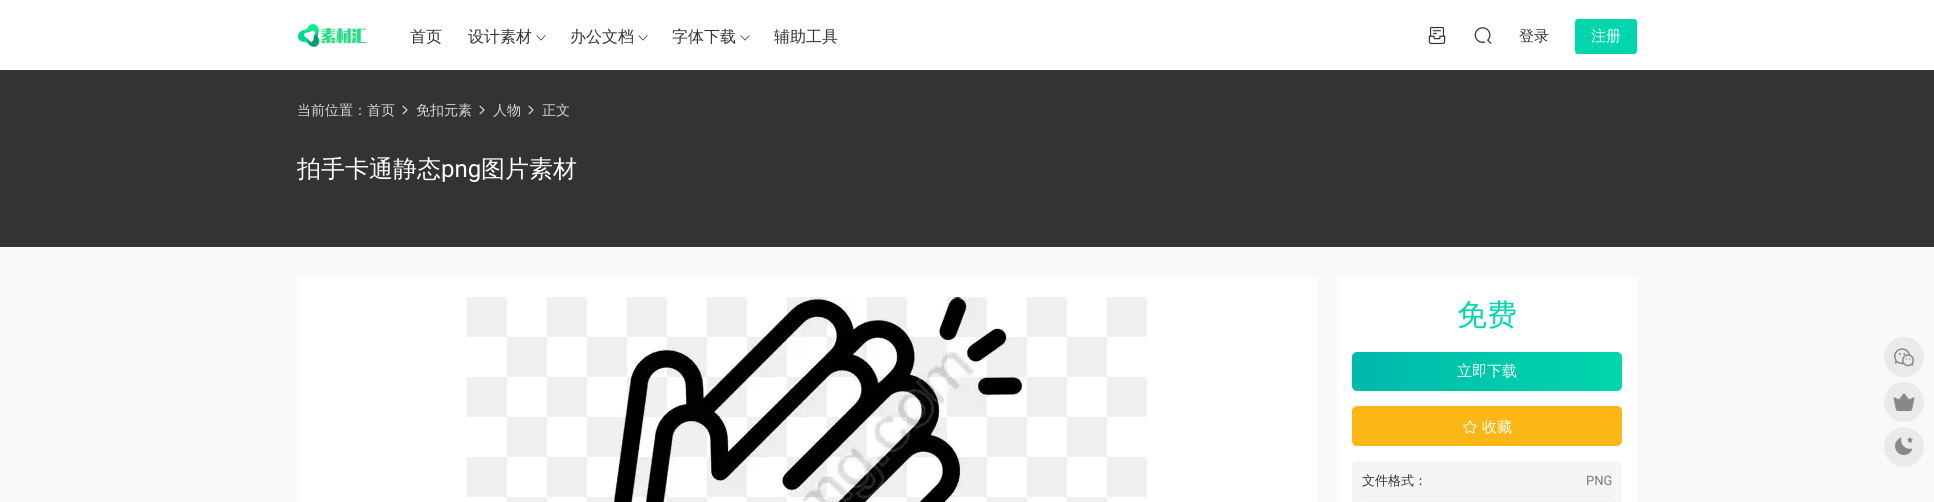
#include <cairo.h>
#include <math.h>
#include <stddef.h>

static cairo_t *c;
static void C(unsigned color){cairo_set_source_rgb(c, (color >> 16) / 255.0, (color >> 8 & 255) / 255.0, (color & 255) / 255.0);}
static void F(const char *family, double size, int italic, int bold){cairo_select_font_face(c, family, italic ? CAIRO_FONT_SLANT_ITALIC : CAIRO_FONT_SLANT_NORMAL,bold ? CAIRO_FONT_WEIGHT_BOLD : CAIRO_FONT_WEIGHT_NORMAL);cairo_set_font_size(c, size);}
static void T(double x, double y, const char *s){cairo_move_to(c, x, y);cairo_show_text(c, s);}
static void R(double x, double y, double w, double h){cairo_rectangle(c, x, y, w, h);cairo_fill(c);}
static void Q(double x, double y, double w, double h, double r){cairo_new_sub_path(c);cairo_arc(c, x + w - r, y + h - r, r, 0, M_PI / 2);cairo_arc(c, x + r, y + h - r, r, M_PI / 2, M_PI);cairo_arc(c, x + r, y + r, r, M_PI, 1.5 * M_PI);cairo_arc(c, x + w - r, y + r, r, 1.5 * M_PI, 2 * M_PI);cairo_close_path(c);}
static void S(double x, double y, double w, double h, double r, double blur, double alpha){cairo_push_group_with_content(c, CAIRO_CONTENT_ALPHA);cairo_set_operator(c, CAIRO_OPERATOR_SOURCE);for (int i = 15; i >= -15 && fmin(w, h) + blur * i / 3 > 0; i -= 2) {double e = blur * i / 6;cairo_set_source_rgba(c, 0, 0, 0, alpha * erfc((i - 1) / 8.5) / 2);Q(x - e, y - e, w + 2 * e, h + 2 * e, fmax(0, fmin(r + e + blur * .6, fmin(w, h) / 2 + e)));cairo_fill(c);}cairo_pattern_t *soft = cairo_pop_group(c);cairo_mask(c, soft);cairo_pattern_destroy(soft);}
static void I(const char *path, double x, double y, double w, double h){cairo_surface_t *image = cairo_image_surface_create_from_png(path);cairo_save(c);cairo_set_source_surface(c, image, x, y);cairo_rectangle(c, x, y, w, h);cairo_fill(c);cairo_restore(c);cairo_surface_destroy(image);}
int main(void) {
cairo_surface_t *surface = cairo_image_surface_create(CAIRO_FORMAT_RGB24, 1934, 502);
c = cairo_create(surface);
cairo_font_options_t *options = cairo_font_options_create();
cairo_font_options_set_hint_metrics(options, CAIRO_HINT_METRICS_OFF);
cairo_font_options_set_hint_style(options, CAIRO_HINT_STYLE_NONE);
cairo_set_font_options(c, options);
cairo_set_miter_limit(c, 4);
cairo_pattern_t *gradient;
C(0xf9f9f9);
cairo_paint(c);
C(0x333333);
R(0,70,1934,177);
C(0x4e5254);
S(0,2,1934,70,0,5,.1);
C(0xffffff);
R(0,0,1934,70);
I("1.png",297,23,70,24);
F("WenQuanYi Zen Hei Medium",16,0,0);
C(0x333333);
T(410,42,"首页");
T(468,42,"设计素材");
I("2.png",536,35,10,6);
T(570,42,"办公文档");
I("2.png",638,35,10,6);
T(672,42,"字体下载");
I("2.png",740,35,10,6);
T(774,42,"辅助工具");
I("3.png",1428,26,18,19);
I("4.png",1474,27,18,17);
F("WenQuanYi Zen Hei Medium",15,0,0);
T(1519,41,"登录");
C(0x00d6ac);
Q(1575,19,62,35,3);
cairo_fill(c);
C(0xffffff);
T(1591,41,"注册");
F("WenQuanYi Zen Hei Medium",14,0,0);
C(0xd6d6d6);
T(297,115,"当前位置：首页");
I("5.png",402,105,6,10);
T(416,115,"免扣元素");
I("5.png",479,105,6,10);
T(493,115,"人物");
I("5.png",528,105,6,10);
T(542,115,"正文");
F("WenQuanYi Zen Hei Medium",24,0,0);
C(0xffffff);
T(297,177,"拍手卡通静态");
F("Roboto",24,0,0);
T(441,177,"png");
F("WenQuanYi Zen Hei Medium",24,0,0);
T(481,177,"图片素材");
Q(297,277,1020,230,5);
cairo_fill(c);
I("6.png",467,297,680,205);
Q(1337,277,300,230,5);
cairo_fill(c);
F("WenQuanYi Zen Hei Medium",30,0,0);
C(0x00d6ac);
T(1457,325,"免费");
gradient = cairo_pattern_create_linear(1352,372,1622,372);
cairo_pattern_add_color_stop_rgba(gradient,0,0,0.725,0.675,1);
cairo_pattern_add_color_stop_rgba(gradient,1,0,0.839,0.675,1);
cairo_set_source(c,gradient);
cairo_pattern_destroy(gradient);
Q(1352,352,270,39,5);
cairo_fill(c);
F("WenQuanYi Zen Hei Medium",15,0,0);
C(0xffffff);
T(1457,376,"立即下载");
C(0xfbb715);
Q(1352,406,270,40,5);
cairo_fill(c);
I("7.png",1463,420,14,14);
C(0xffffff);
T(1482,432,"收藏");
C(0xf5f5f5);
Q(1352,461,270,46,5);
cairo_fill(c);
F("WenQuanYi Zen Hei Medium",13,0,0);
C(0x333333);
T(1362,485,"文件格式：");
F("Roboto",13,0,0);
C(0x777777);
T(1586,485,"PNG");
C(0xefefef);
R(1362,496,250,1);
C(0xe9eaea);
cairo_new_path(c);
cairo_arc(c,1904,357,20,0,2 * M_PI);
cairo_fill(c);
I("8.png",1894,348,20,19);
cairo_arc(c,1904,402,20,0,2 * M_PI);
cairo_fill(c);
I("9.png",1893,393,22,19);
cairo_arc(c,1904,447,20,0,2 * M_PI);
cairo_fill(c);
I("10.png",1895,437,18,18);
cairo_surface_write_to_png(surface, "o.png");
cairo_font_options_destroy(options);
cairo_destroy(c);
cairo_surface_destroy(surface);
return 0;
}
